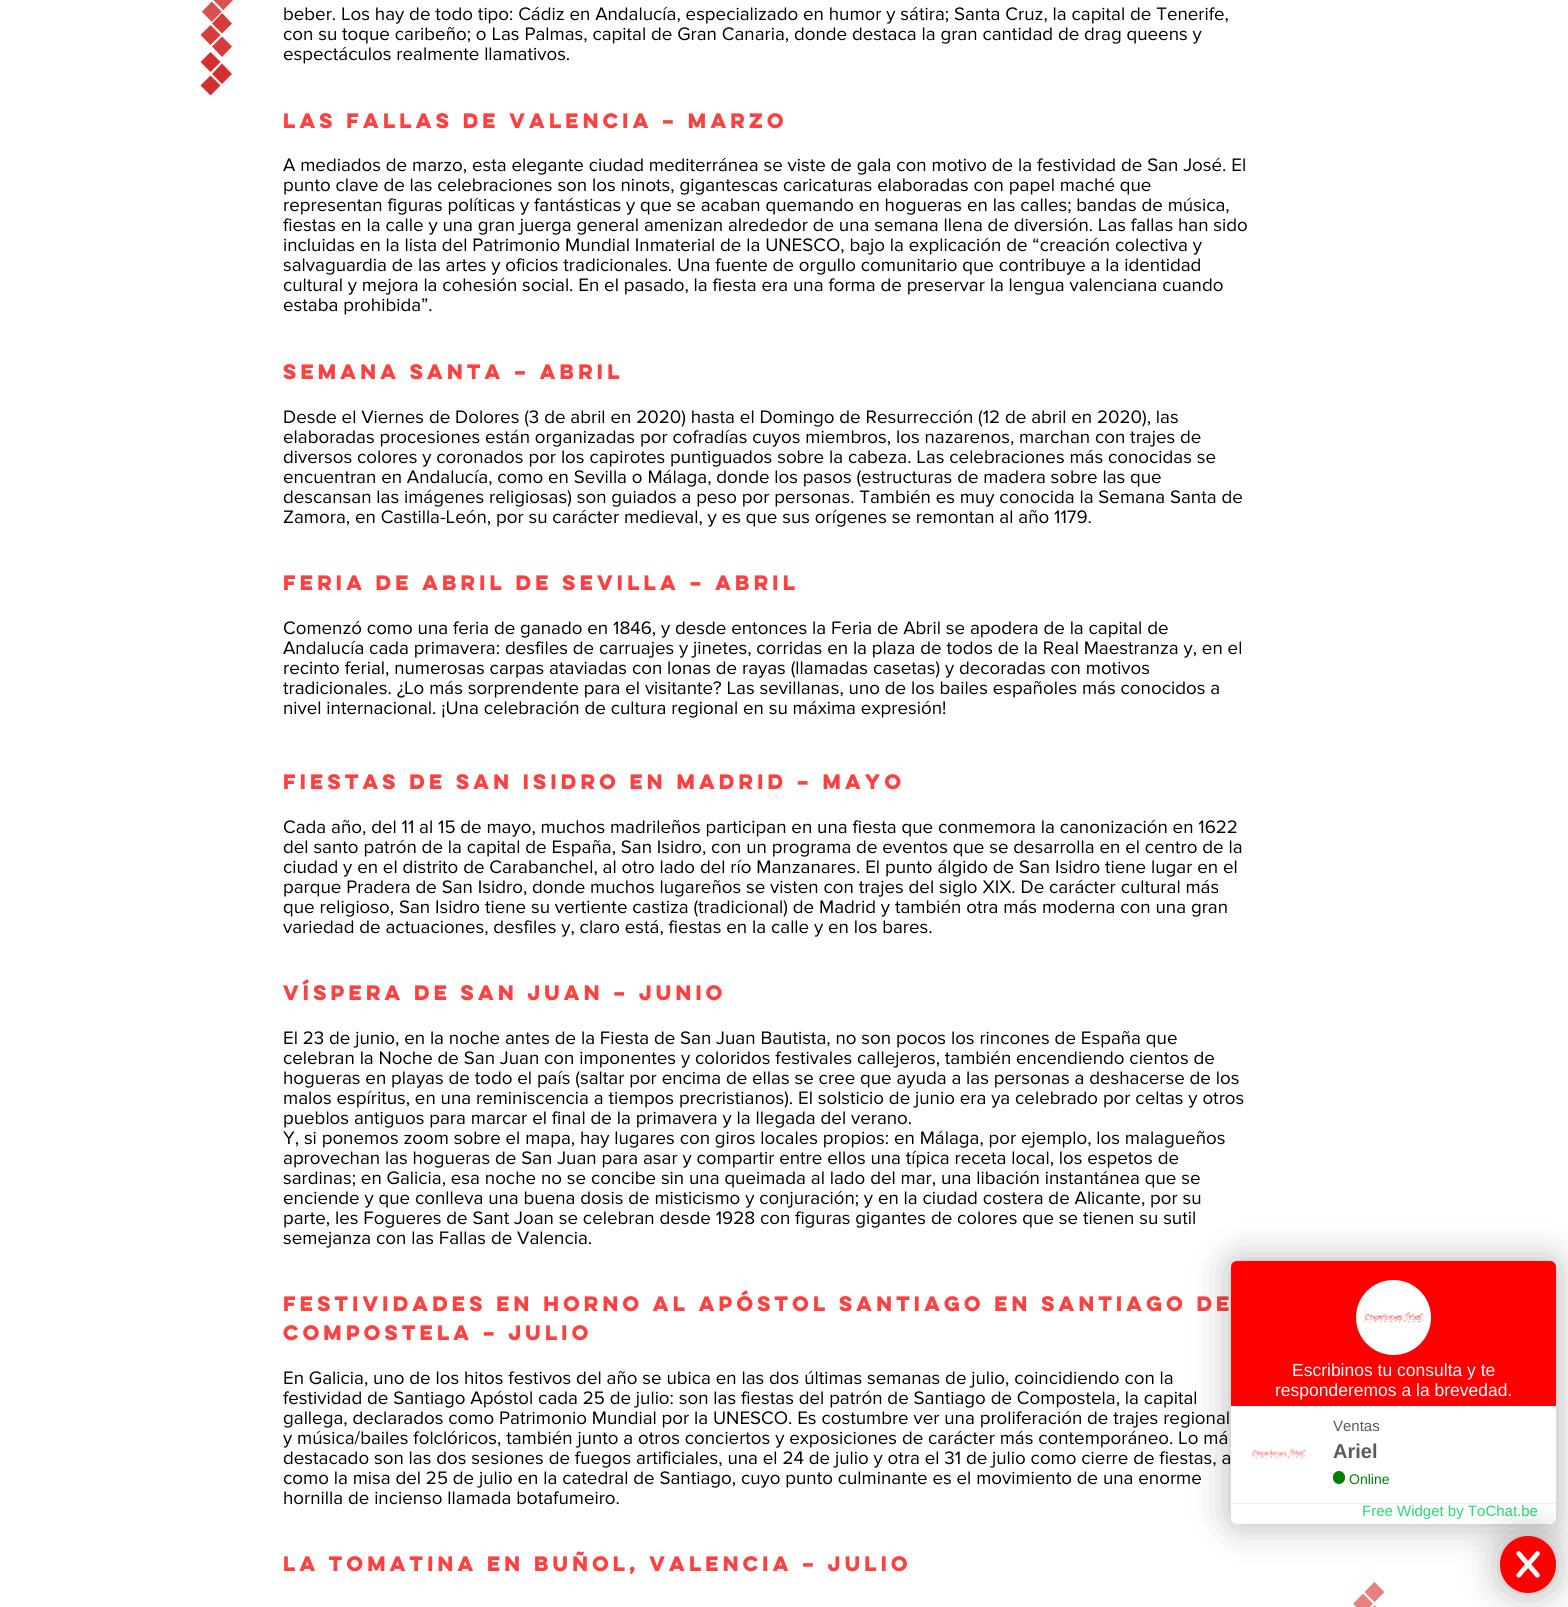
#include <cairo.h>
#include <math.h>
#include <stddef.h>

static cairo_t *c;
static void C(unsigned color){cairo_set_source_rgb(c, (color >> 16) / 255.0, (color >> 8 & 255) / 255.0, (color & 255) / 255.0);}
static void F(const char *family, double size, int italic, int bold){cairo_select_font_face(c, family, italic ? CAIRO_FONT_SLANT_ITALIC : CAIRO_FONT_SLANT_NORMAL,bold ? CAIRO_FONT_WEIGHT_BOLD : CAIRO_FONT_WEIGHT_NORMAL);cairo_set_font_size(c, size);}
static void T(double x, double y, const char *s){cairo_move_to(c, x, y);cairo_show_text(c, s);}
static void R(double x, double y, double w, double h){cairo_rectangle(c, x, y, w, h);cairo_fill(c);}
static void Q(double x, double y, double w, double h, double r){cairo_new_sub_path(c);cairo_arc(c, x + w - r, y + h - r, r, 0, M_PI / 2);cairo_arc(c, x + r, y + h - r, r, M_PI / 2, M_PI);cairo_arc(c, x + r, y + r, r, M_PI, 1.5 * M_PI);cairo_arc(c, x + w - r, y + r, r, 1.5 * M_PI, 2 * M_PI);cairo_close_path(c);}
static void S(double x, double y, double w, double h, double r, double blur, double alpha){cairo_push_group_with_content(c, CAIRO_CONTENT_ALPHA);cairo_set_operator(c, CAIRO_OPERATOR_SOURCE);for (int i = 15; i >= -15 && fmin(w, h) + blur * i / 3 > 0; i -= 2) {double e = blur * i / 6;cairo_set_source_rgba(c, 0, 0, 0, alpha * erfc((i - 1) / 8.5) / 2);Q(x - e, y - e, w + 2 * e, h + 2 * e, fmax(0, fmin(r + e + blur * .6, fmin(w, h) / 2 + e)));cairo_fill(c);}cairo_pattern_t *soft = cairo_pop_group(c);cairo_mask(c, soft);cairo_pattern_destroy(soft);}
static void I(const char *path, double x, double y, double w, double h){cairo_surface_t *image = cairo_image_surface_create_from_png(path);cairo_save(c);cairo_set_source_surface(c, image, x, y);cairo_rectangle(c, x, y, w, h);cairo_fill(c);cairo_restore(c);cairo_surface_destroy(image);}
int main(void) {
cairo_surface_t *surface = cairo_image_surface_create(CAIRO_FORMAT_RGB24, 1568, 1607);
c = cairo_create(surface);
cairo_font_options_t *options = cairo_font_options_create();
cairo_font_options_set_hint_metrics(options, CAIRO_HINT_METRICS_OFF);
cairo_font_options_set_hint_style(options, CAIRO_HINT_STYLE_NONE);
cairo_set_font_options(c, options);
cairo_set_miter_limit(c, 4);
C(0xffffff);
cairo_paint(c);
I("1.png",202,0,31,22);
F("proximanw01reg",18.75,0,0);
C(0x000000);
T(283,20,"beber. Los hay de todo tipo: Cádiz en Andalucía, especializado en humor y sátira; Santa Cruz, la capital de Tenerife,");
T(283,40,"con su toque caribeño; o Las Palmas, capital de Gran Canaria, donde destaca la gran cantidad de drag queens y");
T(283,60,"espectáculos realmente llamativos.");
F("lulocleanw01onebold",18.75,0,1);
C(0xff4040);
T(283,128,"Las fallas de Valencia – Marzo");
F("proximanw01reg",18.75,0,0);
C(0x000000);
T(283,171,"A mediados de marzo, esta elegante ciudad mediterránea se viste de gala con motivo de la festividad de San José. El");
T(283,191,"punto clave de las celebraciones son los ninots, gigantescas caricaturas elaboradas con papel maché que");
T(283,211,"representan figuras políticas y fantásticas y que se acaban quemando en hogueras en las calles; bandas de música,");
T(283,231,"fiestas en la calle y una gran juerga general amenizan alrededor de una semana llena de diversión. Las fallas han sido");
T(283,251,"incluidas en la lista del Patrimonio Mundial Inmaterial de la UNESCO, bajo la explicación de “creación colectiva y");
T(283,271,"salvaguardia de las artes y oficios tradicionales. Una fuente de orgullo comunitario que contribuye a la identidad");
T(283,291,"cultural y mejora la cohesión social. En el pasado, la fiesta era una forma de preservar la lengua valenciana cuando");
T(283,311,"estaba prohibida”.");
F("lulocleanw01onebold",18.75,0,1);
C(0xff4040);
T(283,379,"Semana Santa – Abril");
F("proximanw01reg",18.75,0,0);
C(0x000000);
T(283,423,"Desde el Viernes de Dolores (3 de abril en 2020) hasta el Domingo de Resurrección (12 de abril en 2020), las");
T(283,443,"elaboradas procesiones están organizadas por cofradías cuyos miembros, los nazarenos, marchan con trajes de");
T(283,463,"diversos colores y coronados por los capirotes puntiguados sobre la cabeza. Las celebraciones más conocidas se");
T(283,483,"encuentran en Andalucía, como en Sevilla o Málaga, donde los pasos (estructuras de madera sobre las que");
T(283,503,"descansan las imágenes religiosas) son guiados a peso por personas. También es muy conocida la Semana Santa de");
T(283,523,"Zamora, en Castilla-León, por su carácter medieval, y es que sus orígenes se remontan al año 1179.");
F("lulocleanw01onebold",18.75,0,1);
C(0xff4040);
T(283,590,"Feria de Abril de Sevilla – Abril");
F("proximanw01reg",18.75,0,0);
C(0x000000);
T(283,634,"Comenzó como una feria de ganado en 1846, y desde entonces la Feria de Abril se apodera de la capital de");
T(283,654,"Andalucía cada primavera: desfiles de carruajes y jinetes, corridas en la plaza de todos de la Real Maestranza y, en el");
T(283,674,"recinto ferial, numerosas carpas ataviadas con lonas de rayas (llamadas casetas) y decoradas con motivos");
T(283,694,"tradicionales. ¿Lo más sorprendente para el visitante? Las sevillanas, uno de los bailes españoles más conocidos a");
T(283,714,"nivel internacional. ¡Una celebración de cultura regional en su máxima expresión!");
F("lulocleanw01onebold",18.75,0,1);
C(0xff4040);
T(283,789,"Fiestas de San Isidro en Madrid – Mayo");
F("proximanw01reg",18.75,0,0);
C(0x000000);
T(283,833,"Cada año, del 11 al 15 de mayo, muchos madrileños participan en una fiesta que conmemora la canonización en 1622");
T(283,853,"del santo patrón de la capital de España, San Isidro, con un programa de eventos que se desarrolla en el centro de la");
T(283,873,"ciudad y en el distrito de Carabanchel, al otro lado del río Manzanares. El punto álgido de San Isidro tiene lugar en el");
T(283,893,"parque Pradera de San Isidro, donde muchos lugareños se visten con trajes del siglo XIX. De carácter cultural más");
T(283,913,"que religioso, San Isidro tiene su vertiente castiza (tradicional) de Madrid y también otra más moderna con una gran");
T(283,933,"variedad de actuaciones, desfiles y, claro está, fiestas en la calle y en los bares.");
F("lulocleanw01onebold",18.75,0,1);
C(0xff4040);
T(283,1000,"Víspera de San Juan – Junio");
F("proximanw01reg",18.75,0,0);
C(0x000000);
T(283,1044,"El 23 de junio, en la noche antes de la Fiesta de San Juan Bautista, no son pocos los rincones de España que");
T(283,1064,"celebran la Noche de San Juan con imponentes y coloridos festivales callejeros, también encendiendo cientos de");
T(283,1084,"hogueras en playas de todo el país (saltar por encima de ellas se cree que ayuda a las personas a deshacerse de los");
T(283,1104,"malos espíritus, en una reminiscencia a tiempos precristianos). El solsticio de junio era ya celebrado por celtas y otros");
T(283,1124,"pueblos antiguos para marcar el final de la primavera y la llegada del verano.");
T(283,1144,"Y, si ponemos zoom sobre el mapa, hay lugares con giros locales propios: en Málaga, por ejemplo, los malagueños");
T(283,1164,"aprovechan las hogueras de San Juan para asar y compartir entre ellos una típica receta local, los espetos de");
T(283,1184,"sardinas; en Galicia, esa noche no se concibe sin una queimada al lado del mar, una libación instantánea que se");
T(283,1204,"enciende y que conlleva una buena dosis de misticismo y conjuración; y en la ciudad costera de Alicante, por su");
T(283,1224,"parte, les Fogueres de Sant Joan se celebran desde 1928 con figuras gigantes de colores que se tienen su sutil");
T(283,1244,"semejanza con las Fallas de Valencia.");
F("lulocleanw01onebold",18.75,0,1);
C(0xff4040);
T(283,1311,"Festividades en horno al Apóstol Santiago en Santiago de");
T(283,1340,"Compostela – Julio");
F("proximanw01reg",18.75,0,0);
C(0x000000);
T(283,1384,"En Galicia, uno de los hitos festivos del año se ubica en las dos últimas semanas de julio, coincidiendo con la");
T(283,1404,"festividad de Santiago Apóstol cada 25 de julio: son las fiestas del patrón de Santiago de Compostela, la capital");
T(283,1424,"gallega, declarados como Patrimonio Mundial por la UNESCO. Es costumbre ver una proliferación de trajes regional");
T(283,1444,"y música/bailes folclóricos, también junto a otros conciertos y exposiciones de carácter más contemporáneo. Lo má");
T(283,1464,"destacado son las dos sesiones de fuegos artificiales, una el 24 de julio y otra el 31 de julio como cierre de fiestas, a");
T(283,1484,"como la misa del 25 de julio en la catedral de Santiago, cuyo punto culminante es el movimiento de una enorme");
T(283,1504,"hornilla de incienso llamada botafumeiro.");
F("lulocleanw01onebold",18.75,0,1);
C(0xff4040);
T(283,1571,"La Tomatina en Buñol, Valencia – Julio");
C(0xd63c3c);
cairo_new_path(c);
cairo_move_to(c,200.5,35);
cairo_line_to(c,210.5,45);
cairo_line_to(c,220.5,35);
cairo_line_to(c,210.5,25);
cairo_close_path(c);
cairo_fill(c);
cairo_new_path(c);
cairo_move_to(c,212,23.5);
cairo_line_to(c,222,33.5);
cairo_line_to(c,232,23.5);
cairo_line_to(c,222,13);
cairo_close_path(c);
cairo_move_to(c,222,57);
cairo_line_to(c,232,46.5);
cairo_line_to(c,222,36.5);
cairo_line_to(c,212,46.5);
cairo_close_path(c);
cairo_fill(c);
C(0xd42f2f);
cairo_new_path(c);
cairo_move_to(c,232,74);
cairo_line_to(c,222,63.5);
cairo_line_to(c,212,74);
cairo_line_to(c,222,84);
cairo_close_path(c);
cairo_fill(c);
cairo_new_path(c);
cairo_move_to(c,220.5,85.5);
cairo_line_to(c,210.5,75.5);
cairo_line_to(c,200.5,85.5);
cairo_line_to(c,210.5,95.5);
cairo_close_path(c);
cairo_move_to(c,210.5,52);
cairo_line_to(c,200.5,62);
cairo_line_to(c,210.5,72);
cairo_line_to(c,220.5,62);
cairo_close_path(c);
cairo_fill(c);
I("2.png",1353,1582,32,25);
C(0x000000);
S(1231,1261,325,263,6,19,.3);
C(0xffffff);
Q(1231,1261,325,263,6);
cairo_fill(c);
C(0xff0000);
cairo_new_path(c);
cairo_move_to(c,1237,1261);
cairo_line_to(c,1550,1261);
cairo_curve_to(c,1553.5,1261,1556,1263.5,1556,1267);
cairo_line_to(c,1556,1406);
cairo_line_to(c,1231,1406);
cairo_line_to(c,1231,1267);
cairo_curve_to(c,1231,1263.5,1233.5,1261,1237,1261);
cairo_close_path(c);
cairo_fill(c);
C(0xffffff);
cairo_arc(c,1393.5,1317.5,37.5,0,2 * M_PI);
cairo_fill(c);
I("3.png",1364,1312,60,11);
F("Liberation Sans",17.5,0,0);
T(1292,1376,"Escribinos tu consulta y te");
T(1275,1396,"responderemos a la brevedad.");
I("4.png",1251,1448,55,11);
F("Liberation Sans",15,0,0);
C(0x5c5b5b);
T(1333,1431,"Ventas");
F("Liberation Sans",20,0,1);
T(1333,1458,"Ariel");
C(0x008000);
Q(1333,1471,12,13,6);
cairo_fill(c);
F("Liberation Sans",14,0,0);
T(1349,1484,"Online");
C(0xefefef);
R(1231,1503,325,1);
F("Liberation Sans",15,0,0);
C(0x29d974);
T(1362,1516,"Free Widget by ToChat.be");
C(0x000000);
S(1500,1536,56,57,28,19,.3);
C(0xff0000);
Q(1500,1536,56,57,28);
cairo_fill(c);
I("5.png",1516,1551,40,27);
cairo_surface_write_to_png(surface, "o.png");
cairo_font_options_destroy(options);
cairo_destroy(c);
cairo_surface_destroy(surface);
return 0;
}
